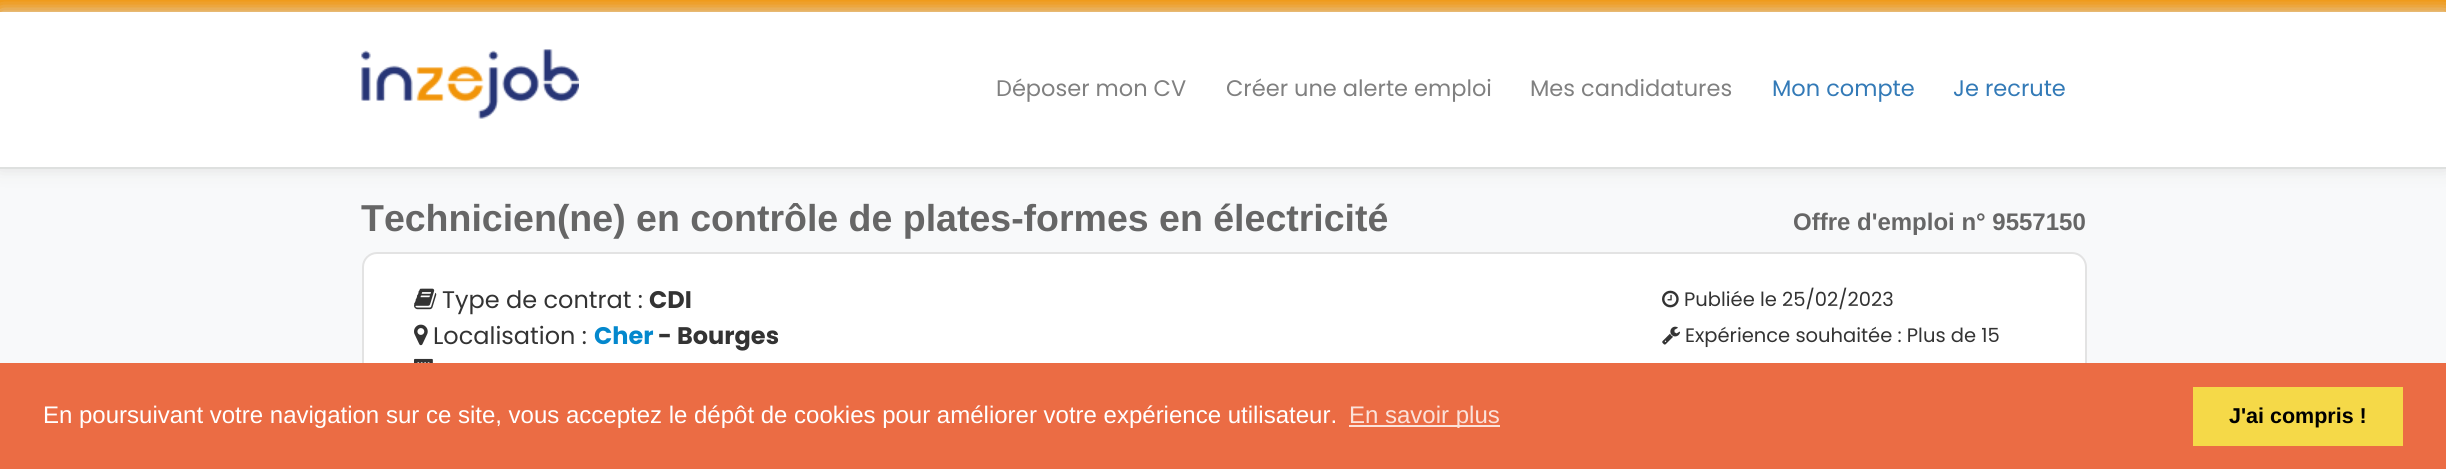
#include <cairo.h>
#include <math.h>
#include <stddef.h>

static cairo_t *c;
static void C(unsigned color){cairo_set_source_rgb(c, (color >> 16) / 255.0, (color >> 8 & 255) / 255.0, (color & 255) / 255.0);}
static void F(const char *family, double size, int italic, int bold){cairo_select_font_face(c, family, italic ? CAIRO_FONT_SLANT_ITALIC : CAIRO_FONT_SLANT_NORMAL,bold ? CAIRO_FONT_WEIGHT_BOLD : CAIRO_FONT_WEIGHT_NORMAL);cairo_set_font_size(c, size);}
static void T(double x, double y, const char *s){cairo_move_to(c, x, y);cairo_show_text(c, s);}
static void R(double x, double y, double w, double h){cairo_rectangle(c, x, y, w, h);cairo_fill(c);}
static void Q(double x, double y, double w, double h, double r){cairo_new_sub_path(c);cairo_arc(c, x + w - r, y + h - r, r, 0, M_PI / 2);cairo_arc(c, x + r, y + h - r, r, M_PI / 2, M_PI);cairo_arc(c, x + r, y + r, r, M_PI, 1.5 * M_PI);cairo_arc(c, x + w - r, y + r, r, 1.5 * M_PI, 2 * M_PI);cairo_close_path(c);}
static void S(double x, double y, double w, double h, double r, double blur, double alpha){cairo_push_group_with_content(c, CAIRO_CONTENT_ALPHA);cairo_set_operator(c, CAIRO_OPERATOR_SOURCE);for (int i = 15; i >= -15 && fmin(w, h) + blur * i / 3 > 0; i -= 2) {double e = blur * i / 6;cairo_set_source_rgba(c, 0, 0, 0, alpha * erfc((i - 1) / 8.5) / 2);Q(x - e, y - e, w + 2 * e, h + 2 * e, fmax(0, fmin(r + e + blur * .6, fmin(w, h) / 2 + e)));cairo_fill(c);}cairo_pattern_t *soft = cairo_pop_group(c);cairo_mask(c, soft);cairo_pattern_destroy(soft);}
static void I(const char *path, double x, double y, double w, double h){cairo_surface_t *image = cairo_image_surface_create_from_png(path);cairo_save(c);cairo_set_source_surface(c, image, x, y);cairo_rectangle(c, x, y, w, h);cairo_fill(c);cairo_restore(c);cairo_surface_destroy(image);}
int main(void) {
cairo_surface_t *surface = cairo_image_surface_create(CAIRO_FORMAT_RGB24, 2446, 469);
c = cairo_create(surface);
cairo_font_options_t *options = cairo_font_options_create();
cairo_font_options_set_hint_metrics(options, CAIRO_HINT_METRICS_OFF);
cairo_font_options_set_hint_style(options, CAIRO_HINT_STYLE_NONE);
cairo_set_font_options(c, options);
cairo_set_miter_limit(c, 4);
C(0xf8f9fa);
cairo_paint(c);
C(0xf19409);
R(0,0,2446,12);
C(0xdddddd);
S(0,12,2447,156,0,9,1);
C(0xffffff);
R(0,12,2446,155);
C(0xdee0df);
R(0,167,2446,2);
I("1.png",361,49,218,70);
F("Poppins",22.5,0,0);
C(0x808080);
T(996,96,"Déposer mon CV");
T(1226,96,"Créer une alerte emploi");
T(1530,96,"Mes candidatures");
C(0x337ab7);
T(1772,96,"Mon compte");
T(1953,96,"Je recrute");
F("Liberation Sans",37.5,0,1);
C(0x666666);
T(361,231,"Technicien(ne) en contrôle de plates-formes en électricité");
F("Liberation Sans",24,0,1);
T(1793,230,"Offre d'emploi n° 9557150");
C(0xffffff);
Q(363,253,1723,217,14);
cairo_fill_preserve(c);
C(0xe3e3e3);
cairo_stroke(c);
I("2.png",414,288,23,22);
F("Poppins",24,0,0);
C(0x333333);
T(442,308,"Type de contrat :");
F("Poppins",24,0,1);
T(649,308,"CDI");
I("3.png",414,324,14,22);
F("Poppins",24,0,0);
T(433,344,"Localisation :");
F("Poppins",24,0,1);
C(0x0488cd);
T(594,344,"Cher");
C(0x333333);
T(658,344,"- Bourges");
I("4.png",414,358,19,5);
I("5.png",1662,290,17,18);
F("Poppins",19.5,0,0);
T(1684,306,"Publiée le 25/02/2023");
I("6.png",1662,326,18,19);
T(1685,342,"Expérience souhaitée : Plus de 15");
C(0xeb6c44);
R(0,363,2446,106);
F("Liberation Sans",24,0,0);
C(0xffffff);
T(43,423,"En poursuivant votre navigation sur ce site, vous acceptez le dépôt de cookies pour améliorer votre expérience utilisateur.");
C(0xfbe2da);
R(1349,425,151,2);
T(1349,423,"En savoir plus");
C(0xf5d948);
R(2193,387,210,59);
F("Liberation Sans",21.5,0,1);
C(0x000000);
T(2229,423,"J'ai compris !");
cairo_surface_write_to_png(surface, "o.png");
cairo_font_options_destroy(options);
cairo_destroy(c);
cairo_surface_destroy(surface);
return 0;
}
